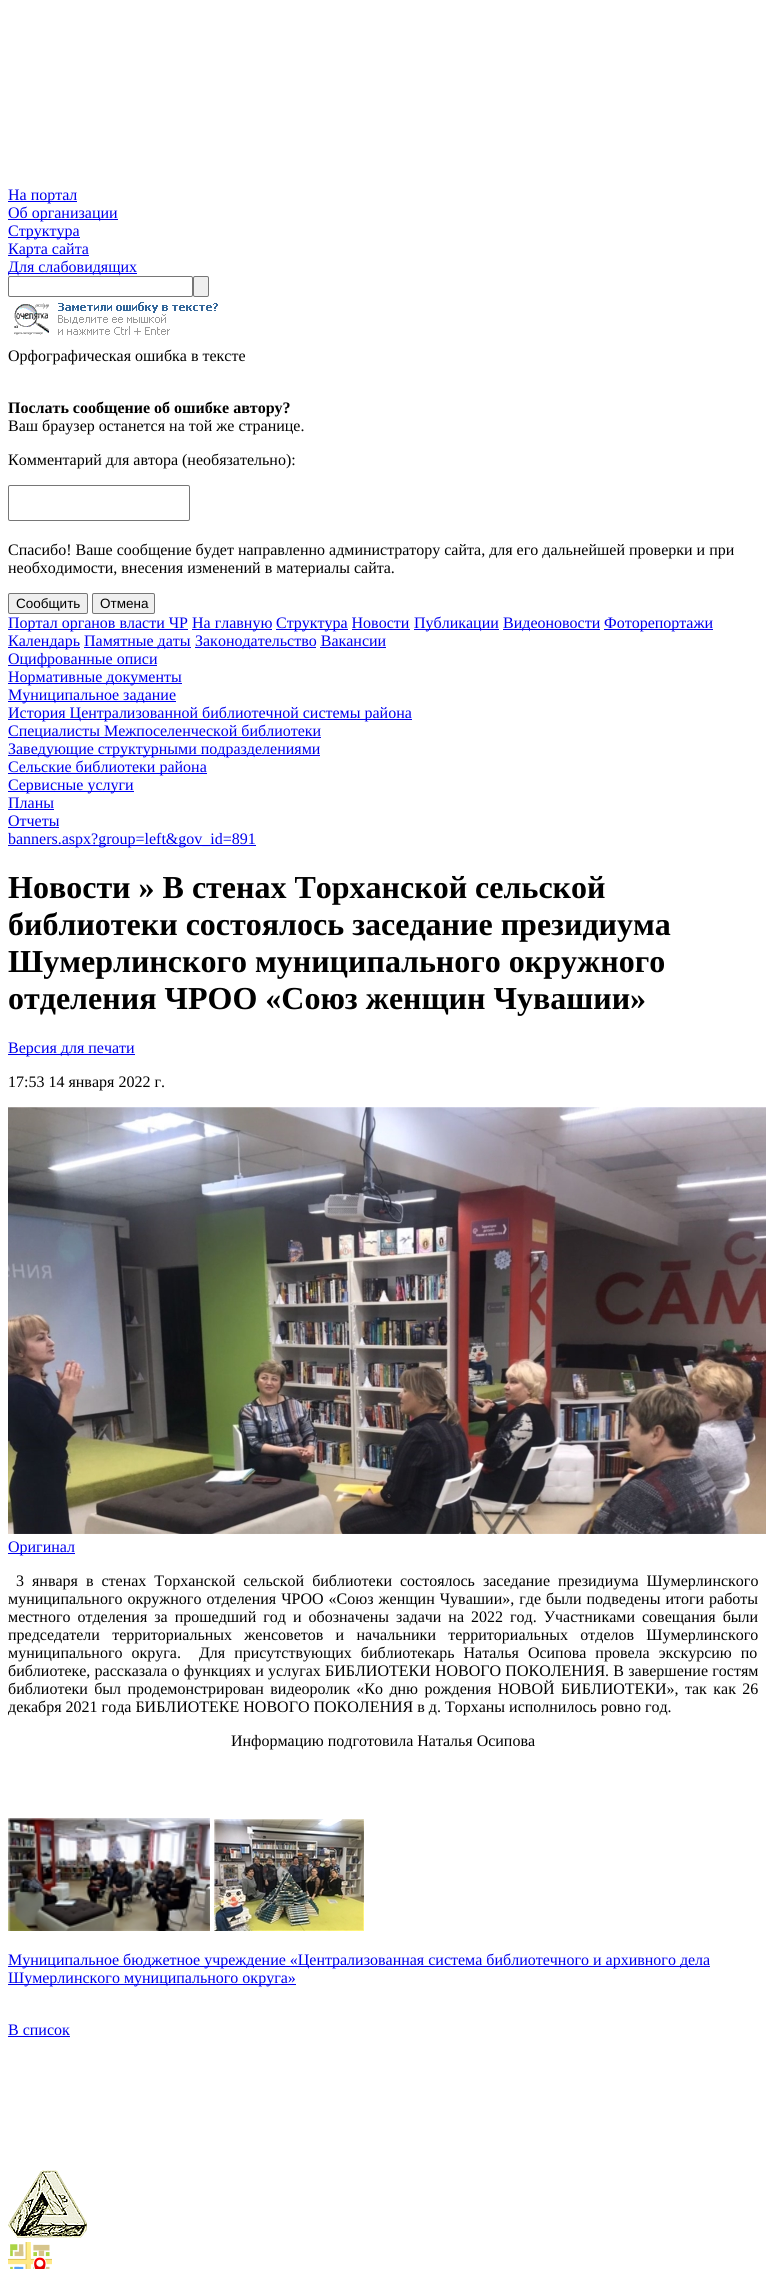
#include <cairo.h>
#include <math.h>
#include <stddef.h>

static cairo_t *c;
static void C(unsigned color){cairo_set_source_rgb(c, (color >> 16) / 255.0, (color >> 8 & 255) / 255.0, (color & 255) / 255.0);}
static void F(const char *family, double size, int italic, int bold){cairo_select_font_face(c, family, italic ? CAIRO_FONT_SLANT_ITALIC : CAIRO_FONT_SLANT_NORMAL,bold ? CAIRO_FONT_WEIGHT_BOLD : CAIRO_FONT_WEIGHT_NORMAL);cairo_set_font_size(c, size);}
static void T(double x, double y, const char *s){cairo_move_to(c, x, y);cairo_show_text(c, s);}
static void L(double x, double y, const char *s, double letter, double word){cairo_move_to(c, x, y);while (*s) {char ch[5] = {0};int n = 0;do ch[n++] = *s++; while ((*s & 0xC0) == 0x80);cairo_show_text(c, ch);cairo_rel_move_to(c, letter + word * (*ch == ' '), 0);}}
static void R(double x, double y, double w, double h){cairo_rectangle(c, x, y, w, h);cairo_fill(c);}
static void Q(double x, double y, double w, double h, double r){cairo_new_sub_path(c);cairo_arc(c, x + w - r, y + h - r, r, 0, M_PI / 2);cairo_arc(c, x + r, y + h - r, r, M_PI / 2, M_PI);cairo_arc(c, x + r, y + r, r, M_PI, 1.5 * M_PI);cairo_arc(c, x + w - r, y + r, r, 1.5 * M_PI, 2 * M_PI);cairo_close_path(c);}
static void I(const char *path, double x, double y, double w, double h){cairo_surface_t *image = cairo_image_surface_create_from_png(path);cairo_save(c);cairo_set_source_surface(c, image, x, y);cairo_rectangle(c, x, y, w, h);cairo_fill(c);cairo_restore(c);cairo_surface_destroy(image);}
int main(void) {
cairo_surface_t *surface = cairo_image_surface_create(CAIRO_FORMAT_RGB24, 766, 2269);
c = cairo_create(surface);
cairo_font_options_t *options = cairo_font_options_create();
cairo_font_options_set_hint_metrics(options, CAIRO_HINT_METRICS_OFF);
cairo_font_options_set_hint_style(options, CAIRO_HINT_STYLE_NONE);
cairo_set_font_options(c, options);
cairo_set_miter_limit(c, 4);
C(0xffffff);
cairo_paint(c);
C(0x0000ee);
R(8,201,69,1);
F("Liberation Serif",16,0,0);
T(8,200,"На портал");
R(8,219,110,1);
T(8,218,"Об организации");
R(8,237,72,1);
T(8,236,"Структура");
R(8,255,81,1);
T(8,254,"Карта сайта");
R(8,273,129,1);
T(8,272,"Для слабовидящих");
Q(8.5,276.5,184,20,1.5);
C(0x767676);
cairo_set_line_width(c,1);
cairo_stroke(c);
C(0xefefef);
Q(193.5,276.5,15,20,1.5);
cairo_fill_preserve(c);
C(0x767676);
cairo_stroke(c);
I("1.png",14,302,204,33);
C(0x000000);
T(8,361,"Орфографическая ошибка в тексте");
F("Liberation Serif",16,0,1);
T(8,413,"Послать сообщение об ошибке автору?");
F("Liberation Serif",16,0,0);
T(8,431,"Ваш браузер останется на той же странице.");
T(8,465,"Комментарий для автора (необязательно):");
Q(8.5,485.5,181,35,1.5);
C(0x767676);
cairo_stroke(c);
C(0x000000);
T(8,555,"Спасибо! Ваше сообщение будет направленно администратору сайта, для его дальнейшей проверки и при");
T(8,573,"необходимости, внесения изменений в материалы сайта.");
C(0xefefef);
Q(8.5,593.5,79,20,1.5);
cairo_fill_preserve(c);
C(0x767676);
cairo_stroke(c);
F("Liberation Sans",13.5,0,0);
C(0x000000);
T(16,608,"Сообщить");
C(0xefefef);
Q(92.5,593.5,62,20,1.5);
cairo_fill_preserve(c);
C(0x767676);
cairo_stroke(c);
C(0x000000);
T(100,608,"Отмена");
C(0x0000ee);
R(8,629,180,1);
F("Liberation Serif",16,0,0);
T(8,628,"Портал органов власти ЧР");
R(192,629,80,1);
T(192,628,"На главную");
R(276,629,72,1);
T(276,628,"Структура Новости");
R(414,629,85,1);
T(414,628,"Публикации");
R(503,629,97,1);
T(503,628,"Видеоновости");
R(604,629,109,1);
T(604,628,"Фоторепортажи");
R(352,629,58,1);
R(8,647,72,1);
T(8,646,"Календарь");
R(84,647,107,1);
T(84,646,"Памятные даты");
R(195,647,121,1);
T(195,646,"Законодательство Вакансии");
R(320,647,66,1);
R(8,665,149,1);
T(8,664,"Оцифрованные описи");
R(8,683,174,1);
T(8,682,"Нормативные документы");
R(8,701,168,1);
T(8,700,"Муниципальное задание");
R(8,719,404,1);
T(8,718,"История Централизованной библиотечной системы района");
R(8,737,313,1);
T(8,736,"Специалисты Межпоселенческой библиотеки");
R(8,755,312,1);
T(8,754,"Заведующие структурными подразделениями");
R(8,773,199,1);
T(8,772,"Сельские библиотеки района");
R(8,791,126,1);
T(8,790,"Сервисные услуги");
T(8,808,"Планы");
R(8,809,46,1);
T(8,826,"Отчеты");
R(8,827,51,1);
R(8,845,248,1);
T(8,844,"banners.aspx?group=left&gov_id=891");
F("Liberation Serif",32,0,1);
C(0x000000);
T(8,898,"Новости » В стенах Торханской сельской");
T(8,935,"библиотеки состоялось заседание президиума");
T(8,972,"Шумерлинского муниципального окружного");
T(8,1009,"отделения ЧРОО «Союз женщин Чувашии»");
C(0x0000ee);
R(8,1054,127,1);
F("Liberation Serif",16,0,0);
T(8,1053,"Версия для печати");
C(0x000000);
T(8,1087,"17:53 14 января 2022 г.");
I("2.png",8,1107,758,427);
C(0x0000ee);
R(8,1553,67,1);
T(8,1552,"Оригинал");
C(0x000000);
L(16,1586,"3 января в стенах Торханской сельской библиотеки состоялось заседание президиума Шумерлинского",0,4);
L(8,1604,"муниципального окружного отделения ЧРОО «Союз женщин Чувашии», где были подведены итоги работы",0,1);
L(8,1622,"местного отделения за прошедший год и обозначены задачи на 2022 год. Участниками совещания были",0,3);
L(8,1640,"председатели территориальных женсоветов и начальники территориальных отделов Шумерлинского",0,8.25);
L(8,1658,"муниципального округа.  Для присутствующих библиотекарь Наталья Осипова провела экскурсию по",0,5);
L(8,1676,"библиотеке, рассказала о функциях и услугах БИБЛИОТЕКИ НОВОГО ПОКОЛЕНИЯ. В завершение гостям",0,.25);
L(8,1694,"библиотеки был продемонстрирован видеоролик «Ко дню рождения НОВОЙ БИБЛИОТЕКИ», так как 26",0,2.4);
T(8,1712,"декабря 2021 года БИБЛИОТЕКЕ НОВОГО ПОКОЛЕНИЯ в д. Торханы исполнилось ровно год.");
T(231,1746,"Информацию подготовила Наталья Осипова");
I("3.png",8,1818,202,113);
I("4.png",214,1819,150,112);
C(0x0000ee);
R(8,1966,702,1);
T(8,1965,"Муниципальное бюджетное учреждение «Централизованная система библиотечного и архивного дела");
R(8,1984,288,1);
T(8,1983,"Шумерлинского муниципального округа»");
T(8,2035,"В список");
R(8,2036,62,1);
I("5.png",8,2170,79,68);
I("6.png",8,2242,44,27);
cairo_surface_write_to_png(surface, "o.png");
cairo_font_options_destroy(options);
cairo_destroy(c);
cairo_surface_destroy(surface);
return 0;
}
